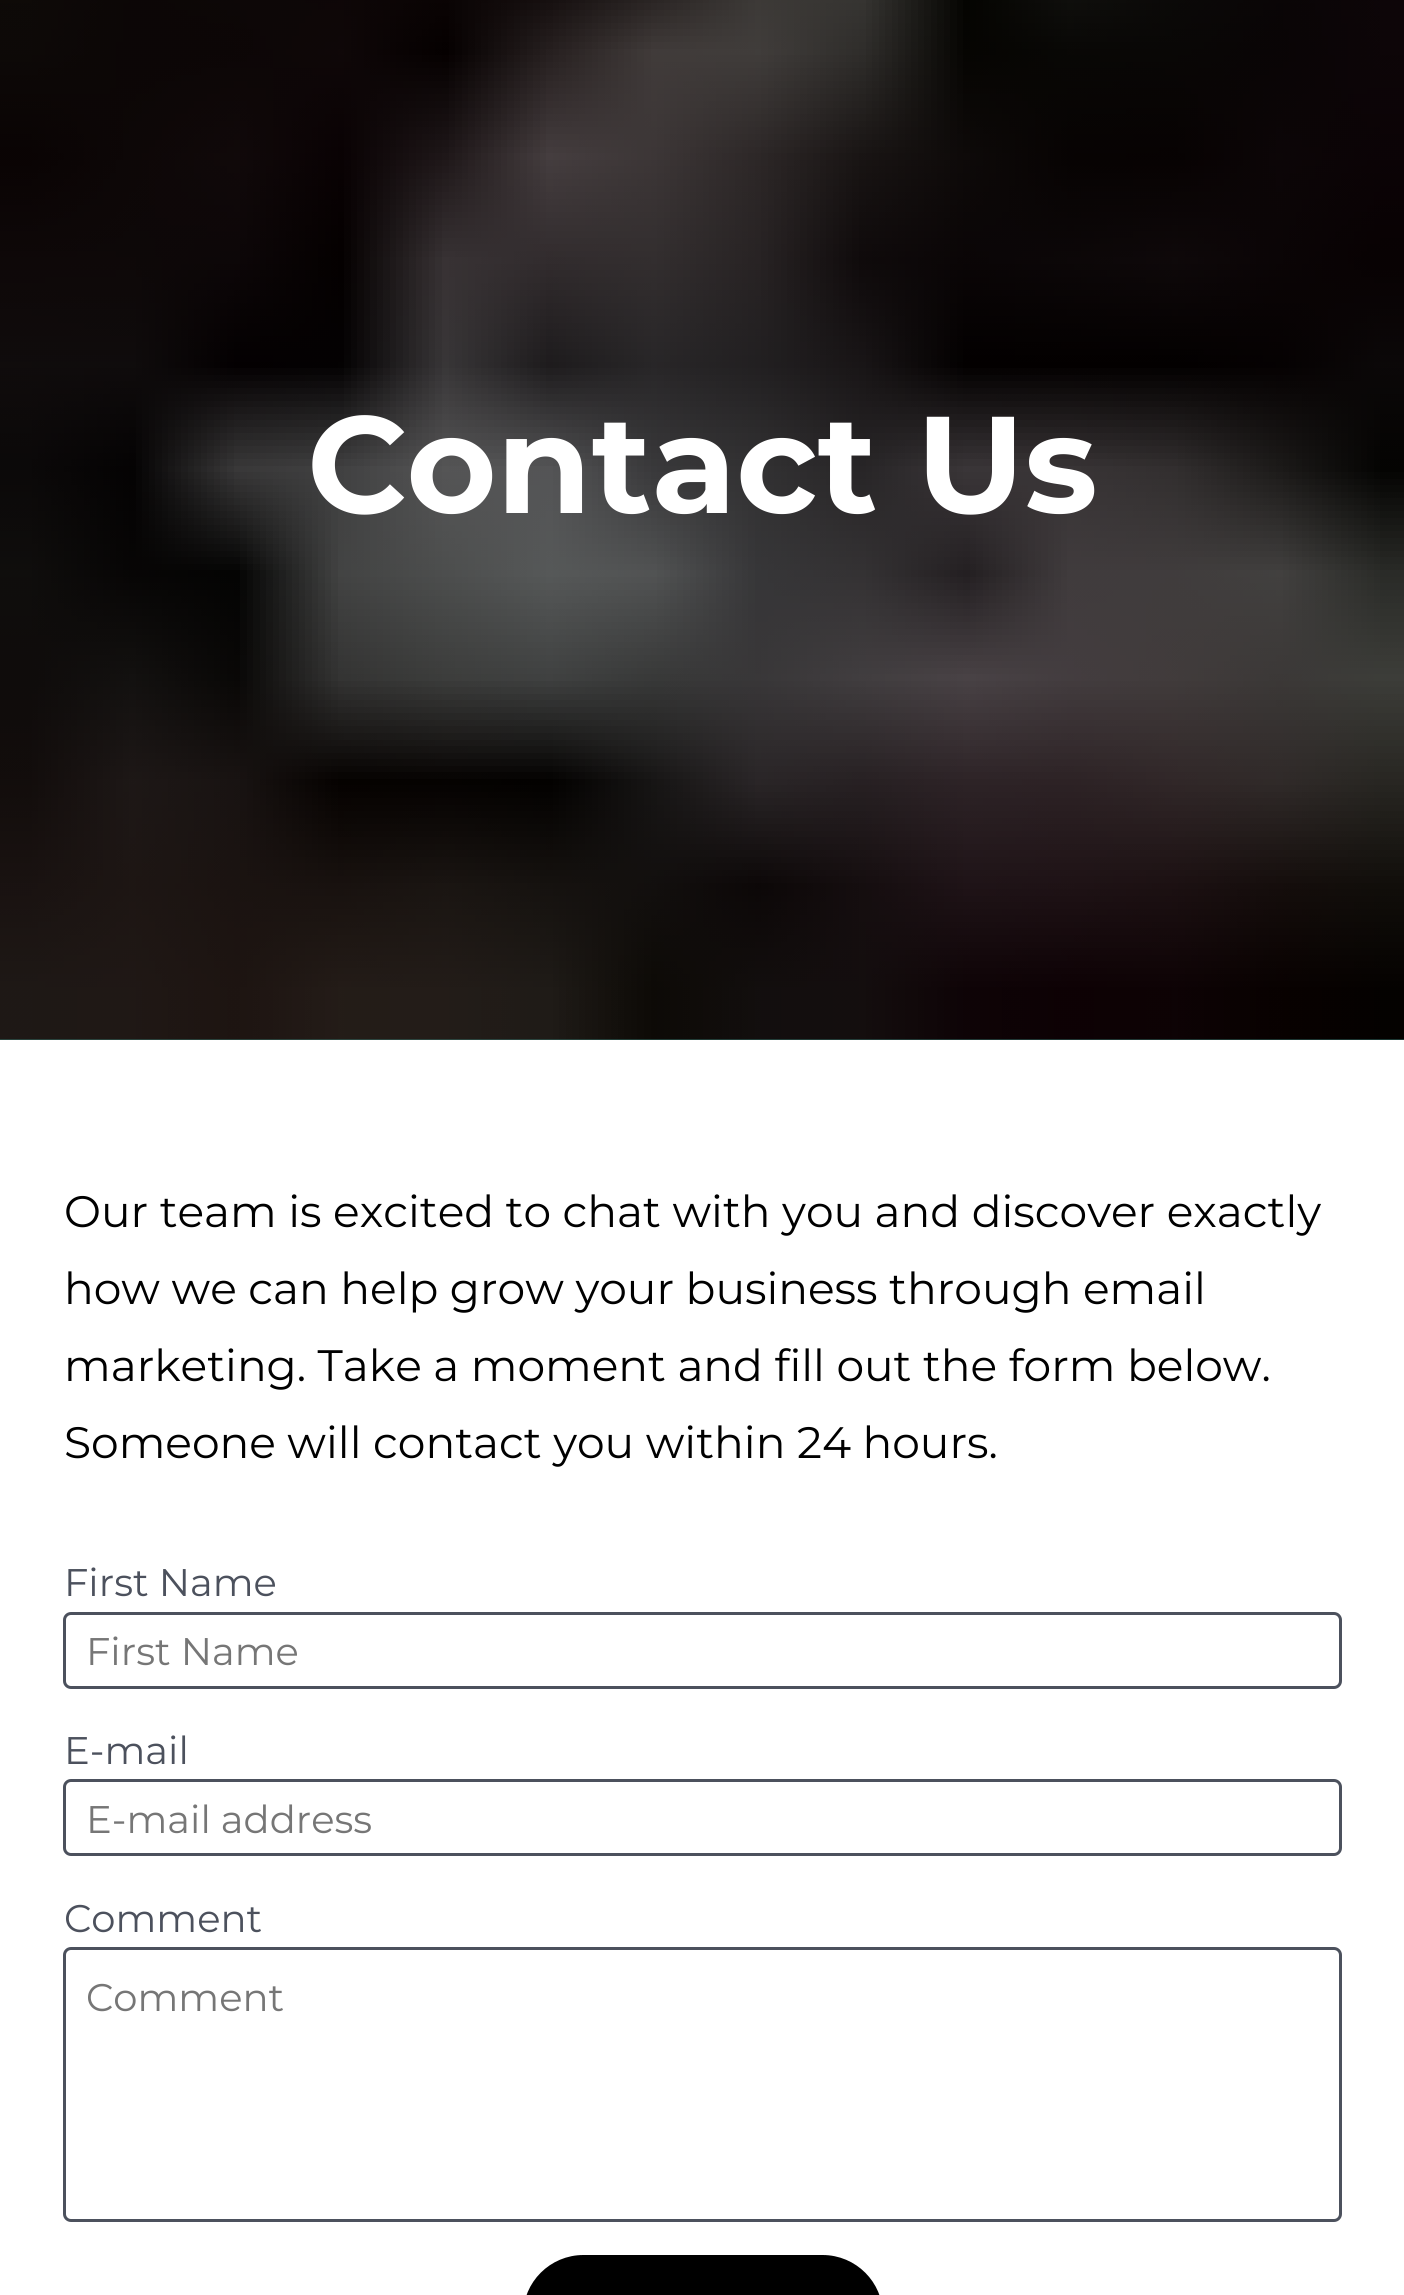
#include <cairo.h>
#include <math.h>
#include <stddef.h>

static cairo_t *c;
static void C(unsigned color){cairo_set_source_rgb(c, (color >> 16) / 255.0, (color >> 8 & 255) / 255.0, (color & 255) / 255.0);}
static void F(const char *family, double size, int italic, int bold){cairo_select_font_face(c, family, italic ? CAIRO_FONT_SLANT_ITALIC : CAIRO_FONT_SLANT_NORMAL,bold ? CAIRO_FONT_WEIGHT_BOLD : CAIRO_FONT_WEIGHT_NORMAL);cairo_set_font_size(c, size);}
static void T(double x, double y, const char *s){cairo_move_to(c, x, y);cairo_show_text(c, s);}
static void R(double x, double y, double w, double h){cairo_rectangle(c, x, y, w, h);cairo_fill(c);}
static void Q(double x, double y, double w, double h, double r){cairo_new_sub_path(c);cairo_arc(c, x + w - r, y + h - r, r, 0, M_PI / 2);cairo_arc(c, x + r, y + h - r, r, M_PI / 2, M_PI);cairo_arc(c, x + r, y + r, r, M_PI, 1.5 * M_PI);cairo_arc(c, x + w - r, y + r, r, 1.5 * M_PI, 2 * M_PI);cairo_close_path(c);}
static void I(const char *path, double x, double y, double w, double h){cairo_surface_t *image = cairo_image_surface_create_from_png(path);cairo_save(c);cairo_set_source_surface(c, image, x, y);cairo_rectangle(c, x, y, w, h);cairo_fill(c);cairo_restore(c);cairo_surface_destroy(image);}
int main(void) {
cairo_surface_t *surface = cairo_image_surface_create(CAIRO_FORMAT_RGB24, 1404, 2295);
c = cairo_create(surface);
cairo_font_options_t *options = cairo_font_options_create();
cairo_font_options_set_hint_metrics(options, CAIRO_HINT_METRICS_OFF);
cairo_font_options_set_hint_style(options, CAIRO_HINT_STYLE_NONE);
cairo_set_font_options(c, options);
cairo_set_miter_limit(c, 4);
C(0xffffff);
cairo_paint(c);
C(0x28554e);
R(0,1039,1404,1);
I("1.png",0,0,1404,1040);
F("Montserrat",137.5,0,1);
C(0xffffff);
T(307,513,"Contact Us");
F("Montserrat",44,0,0);
C(0x000000);
T(64,1227,"Our team is excited to chat with you and discover exactly");
T(64,1304,"how we can help grow your business through email");
T(64,1381,"marketing. Take a moment and fill out the form below.");
T(64,1458,"Someone will contact you within 24 hours.");
F("Montserrat",38.5,0,0);
C(0x4c515d);
T(64,1596,"First Name");
Q(64.5,1613.5,1276,74,6.5);
cairo_set_line_width(c,3);
cairo_stroke(c);
C(0x767676);
T(86,1665,"First Name");
C(0x4c515d);
T(64,1764,"E-mail");
Q(64.5,1780.5,1276,74,6.5);
cairo_stroke(c);
C(0x767676);
T(86,1833,"E-mail address");
C(0x4c515d);
T(64,1932,"Comment");
Q(64.5,1948.5,1276,272,6.5);
cairo_stroke(c);
C(0x767676);
T(86,2011,"Comment");
C(0x000000);
Q(524.5,2256.5,357,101,59);
cairo_fill_preserve(c);
cairo_stroke(c);
cairo_surface_write_to_png(surface, "o.png");
cairo_font_options_destroy(options);
cairo_destroy(c);
cairo_surface_destroy(surface);
return 0;
}
